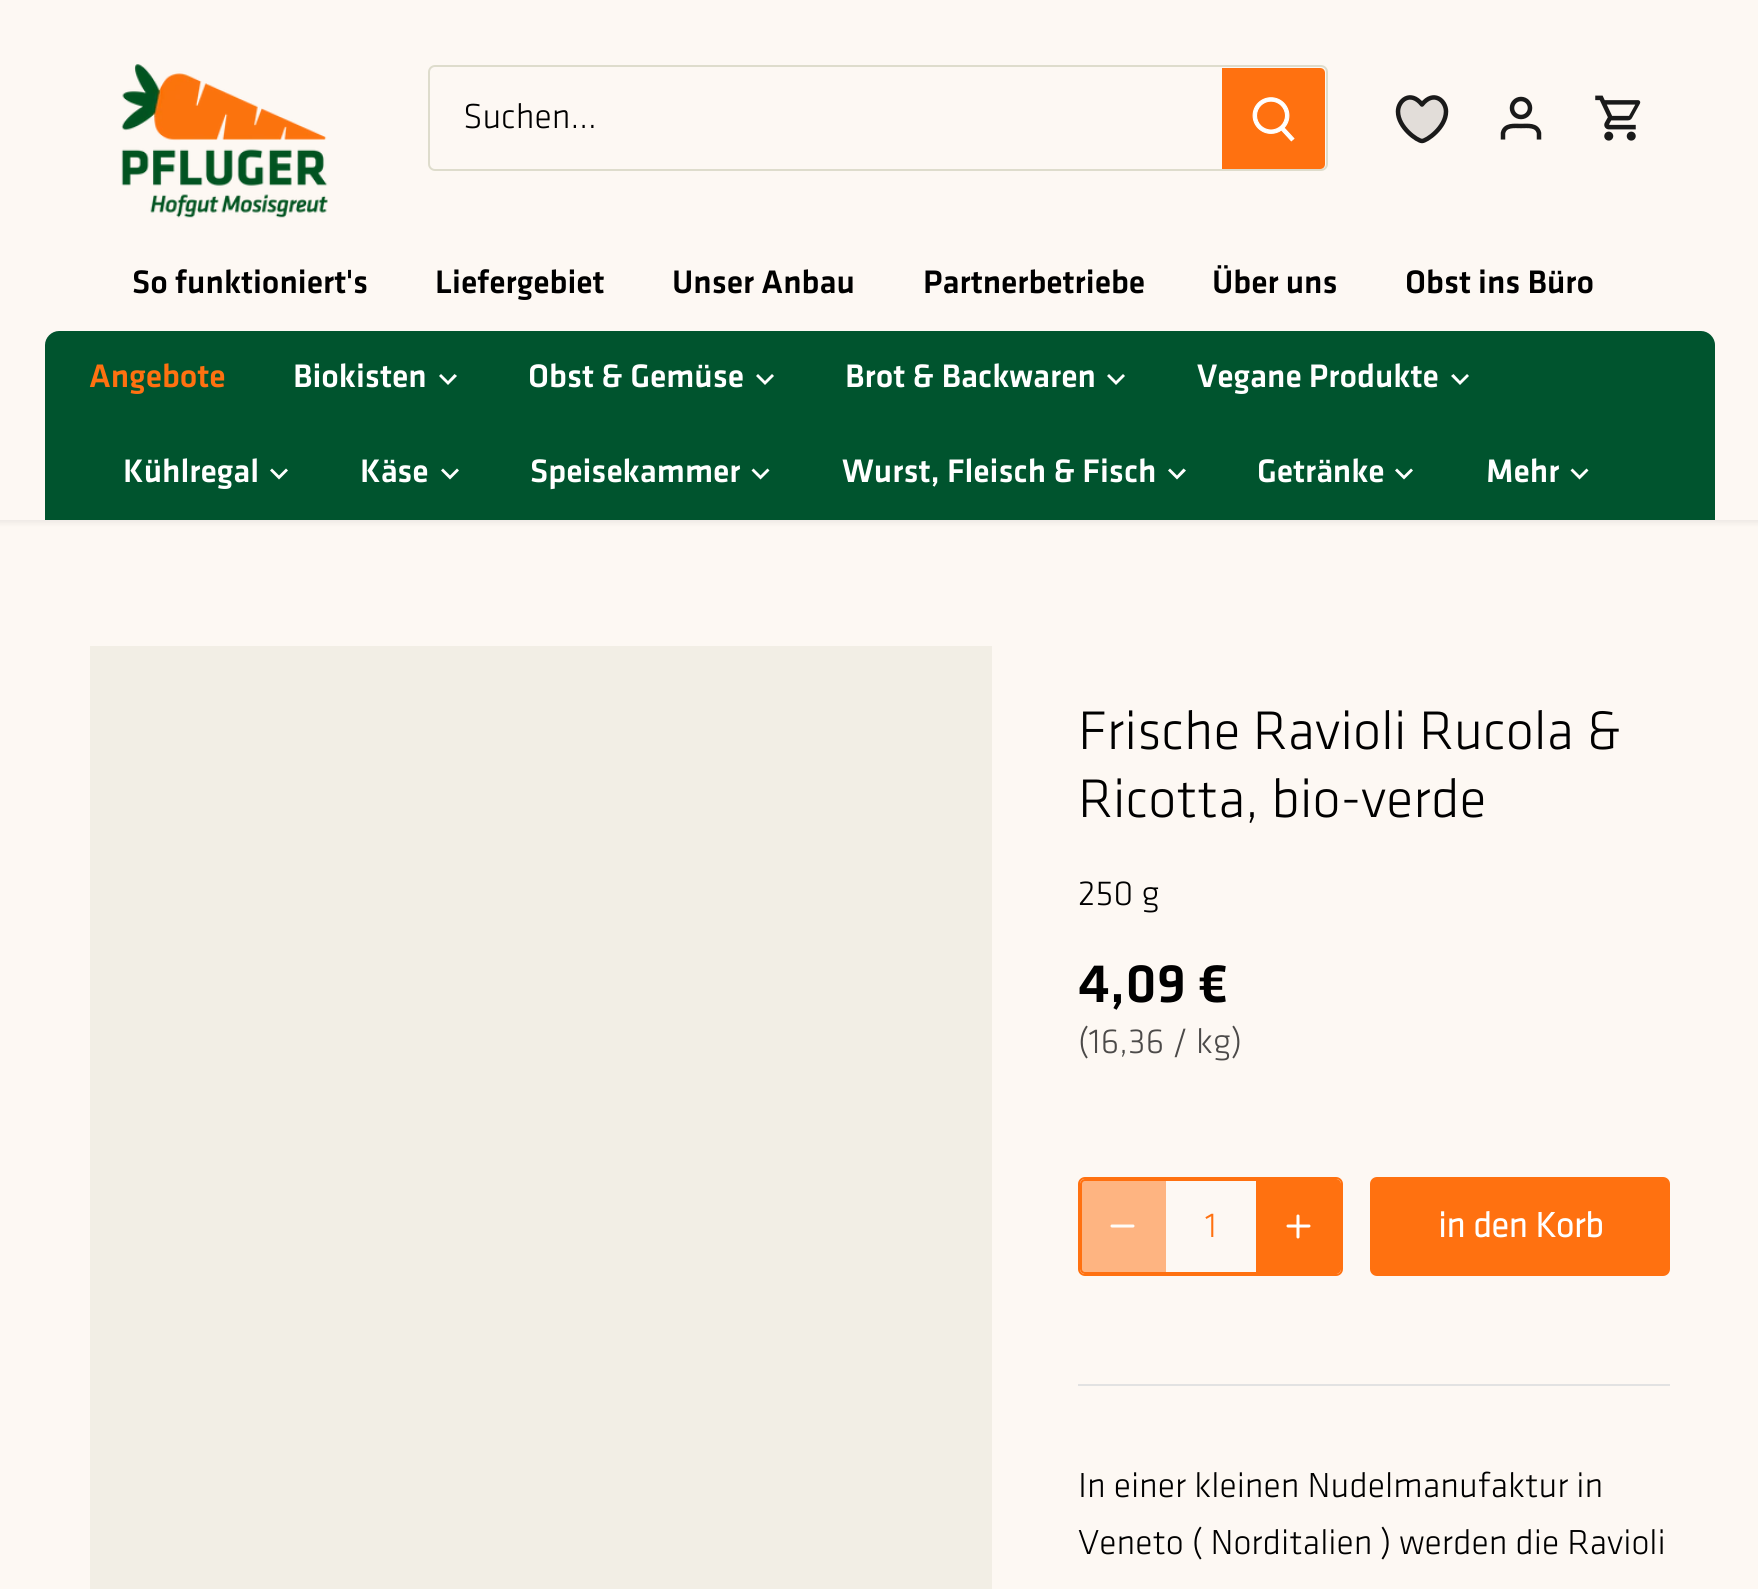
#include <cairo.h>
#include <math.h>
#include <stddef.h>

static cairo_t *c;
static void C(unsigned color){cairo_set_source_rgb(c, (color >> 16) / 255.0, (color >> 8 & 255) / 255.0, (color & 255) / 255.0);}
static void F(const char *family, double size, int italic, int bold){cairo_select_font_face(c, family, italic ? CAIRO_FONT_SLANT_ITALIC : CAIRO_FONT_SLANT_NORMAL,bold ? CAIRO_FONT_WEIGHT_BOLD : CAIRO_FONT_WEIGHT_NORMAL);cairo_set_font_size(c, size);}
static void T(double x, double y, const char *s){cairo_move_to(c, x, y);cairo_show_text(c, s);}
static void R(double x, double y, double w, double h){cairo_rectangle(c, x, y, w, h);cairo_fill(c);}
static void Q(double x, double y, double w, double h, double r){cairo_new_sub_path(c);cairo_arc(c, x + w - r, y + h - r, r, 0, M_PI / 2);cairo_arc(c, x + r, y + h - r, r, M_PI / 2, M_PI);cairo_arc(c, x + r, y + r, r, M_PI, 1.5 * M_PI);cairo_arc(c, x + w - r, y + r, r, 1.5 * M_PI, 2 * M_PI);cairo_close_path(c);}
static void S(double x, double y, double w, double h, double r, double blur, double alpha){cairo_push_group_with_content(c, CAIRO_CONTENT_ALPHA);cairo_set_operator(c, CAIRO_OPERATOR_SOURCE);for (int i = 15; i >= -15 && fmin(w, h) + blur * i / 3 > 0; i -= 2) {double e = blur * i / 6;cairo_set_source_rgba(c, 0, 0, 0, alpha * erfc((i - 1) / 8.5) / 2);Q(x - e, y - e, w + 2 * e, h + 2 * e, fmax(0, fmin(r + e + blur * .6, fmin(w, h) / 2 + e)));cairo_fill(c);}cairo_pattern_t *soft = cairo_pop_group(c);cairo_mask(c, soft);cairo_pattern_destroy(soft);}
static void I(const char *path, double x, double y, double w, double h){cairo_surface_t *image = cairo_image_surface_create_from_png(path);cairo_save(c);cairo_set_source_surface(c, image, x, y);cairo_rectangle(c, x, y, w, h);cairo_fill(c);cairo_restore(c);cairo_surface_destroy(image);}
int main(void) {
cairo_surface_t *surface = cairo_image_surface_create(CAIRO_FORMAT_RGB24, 1758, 1589);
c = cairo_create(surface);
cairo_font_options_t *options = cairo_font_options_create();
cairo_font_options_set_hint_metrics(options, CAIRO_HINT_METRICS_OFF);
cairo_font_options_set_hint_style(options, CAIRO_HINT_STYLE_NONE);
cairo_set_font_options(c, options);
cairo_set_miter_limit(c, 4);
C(0xfdf8f3);
cairo_paint(c);
C(0x000000);
S(-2,-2,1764,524,0,3.5,.08);
C(0xfdf8f3);
R(0,0,1758,520);
I("1.png",121,64,207,154);
Q(429,66,898,104,6);
C(0xdedccc);
cairo_stroke(c);
F("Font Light",36,0,0);
C(0x000000);
T(463,128,"Suchen...");
C(0xff7110);
cairo_new_path(c);
cairo_move_to(c,1222,68);
cairo_line_to(c,1320,68);
cairo_curve_to(c,1323,68,1325,70,1325,73);
cairo_line_to(c,1325,164);
cairo_curve_to(c,1325,167,1323,169,1320,169);
cairo_line_to(c,1222,169);
cairo_close_path(c);
cairo_fill(c);
I("2.png",1252,97,43,45);
C(0xe2ddd9);
cairo_new_path(c);
cairo_move_to(c,1422,105);
cairo_curve_to(c,1410,90,1398,100,1398,111);
cairo_curve_to(c,1398,128,1417,141,1422,141);
cairo_curve_to(c,1427,141,1446,128,1446,111);
cairo_curve_to(c,1446,100,1434,90,1422,105);
cairo_close_path(c);
cairo_fill(c);
cairo_new_path(c);
cairo_move_to(c,1422,104.5);
cairo_curve_to(c,1410.5,90,1398,100.5,1398,111.5);
cairo_curve_to(c,1398,127.5,1417.5,141,1422,141);
cairo_curve_to(c,1426.5,141,1446,127.5,1446,111.5);
cairo_curve_to(c,1446,100.5,1433.5,90,1422,104.5);
cairo_close_path(c);
C(0x1a1a1a);
cairo_set_line_width(c,4.5);
cairo_set_line_cap(c,CAIRO_LINE_CAP_ROUND);
cairo_set_line_join(c,CAIRO_LINE_JOIN_ROUND);
cairo_stroke(c);
cairo_arc(c,1521,108,9,0,2 * M_PI);
cairo_set_line_cap(c,CAIRO_LINE_CAP_BUTT);
cairo_set_line_join(c,CAIRO_LINE_JOIN_MITER);
cairo_stroke(c);
cairo_new_path(c);
cairo_move_to(c,1539,139.5);
cairo_line_to(c,1539,133);
cairo_curve_to(c,1537,124.5,1527.5,126,1521,126);
cairo_curve_to(c,1514.5,126,1505,124.5,1503,133);
cairo_line_to(c,1503,139.5);
cairo_stroke(c);
I("3.png",1595,95,46,46);
F("Font Medium",33.75,0,0);
C(0x000000);
T(132,293,"So funktioniert's");
T(435,293,"Liefergebiet");
T(672,293,"Unser Anbau");
T(923,293,"Partnerbetriebe");
T(1212,293,"Über uns");
T(1405,293,"Obst ins Büro");
C(0x00542e);
cairo_new_path(c);
cairo_move_to(c,59,331);
cairo_line_to(c,1701,331);
cairo_curve_to(c,1708.5,331,1715,337.5,1715,345);
cairo_line_to(c,1715,520);
cairo_line_to(c,45,520);
cairo_line_to(c,45,345);
cairo_curve_to(c,45,337.5,51.5,331,59,331);
cairo_close_path(c);
cairo_fill(c);
C(0xff7110);
T(89,387,"Angebote");
C(0xffffff);
T(293,387,"Biokisten");
cairo_new_path(c);
cairo_move_to(c,441,374);
cairo_line_to(c,448,381);
cairo_line_to(c,454.5,374);
cairo_line_to(c,457,376);
cairo_line_to(c,448,385);
cairo_line_to(c,439,376);
cairo_close_path(c);
cairo_fill(c);
T(528,387,"Obst & Gemüse");
cairo_new_path(c);
cairo_move_to(c,758,374);
cairo_line_to(c,765,381);
cairo_line_to(c,772,374);
cairo_line_to(c,774,376);
cairo_line_to(c,765,385);
cairo_line_to(c,756,376);
cairo_close_path(c);
cairo_fill(c);
T(845,387,"Brot & Backwaren");
cairo_new_path(c);
cairo_move_to(c,1109,374);
cairo_line_to(c,1116,381);
cairo_line_to(c,1123,374);
cairo_line_to(c,1125,376);
cairo_line_to(c,1116,385);
cairo_line_to(c,1107,376);
cairo_close_path(c);
cairo_fill(c);
T(1197,387,"Vegane Produkte");
cairo_new_path(c);
cairo_move_to(c,1453.5,374);
cairo_line_to(c,1460,381);
cairo_line_to(c,1467,374);
cairo_line_to(c,1469,376);
cairo_line_to(c,1460,385);
cairo_line_to(c,1451,376);
cairo_close_path(c);
cairo_fill(c);
T(123,482,"Kühlregal");
cairo_new_path(c);
cairo_move_to(c,272,468.5);
cairo_line_to(c,279,475.5);
cairo_line_to(c,286,468.5);
cairo_line_to(c,288,470.5);
cairo_line_to(c,279,479.5);
cairo_line_to(c,270,470.5);
cairo_close_path(c);
cairo_fill(c);
T(360,482,"Käse");
cairo_new_path(c);
cairo_move_to(c,443,468.5);
cairo_line_to(c,450,475.5);
cairo_line_to(c,457,468.5);
cairo_line_to(c,459,470.5);
cairo_line_to(c,450,479.5);
cairo_line_to(c,441,470.5);
cairo_close_path(c);
cairo_fill(c);
T(530,482,"Speisekammer");
cairo_new_path(c);
cairo_move_to(c,753.5,468.5);
cairo_line_to(c,760.5,475.5);
cairo_line_to(c,767.5,468.5);
cairo_line_to(c,769.5,470.5);
cairo_line_to(c,760.5,479.5);
cairo_line_to(c,751.5,470.5);
cairo_close_path(c);
cairo_fill(c);
T(842,482,"Wurst, Fleisch & Fisch");
cairo_new_path(c);
cairo_move_to(c,1170,468.5);
cairo_line_to(c,1177,475.5);
cairo_line_to(c,1183.5,468.5);
cairo_line_to(c,1186,470.5);
cairo_line_to(c,1177,479.5);
cairo_line_to(c,1168,470.5);
cairo_close_path(c);
cairo_fill(c);
T(1257,482,"Getränke");
cairo_new_path(c);
cairo_move_to(c,1397,468.5);
cairo_line_to(c,1404,475.5);
cairo_line_to(c,1411,468.5);
cairo_line_to(c,1413,470.5);
cairo_line_to(c,1404,479.5);
cairo_line_to(c,1395,470.5);
cairo_close_path(c);
cairo_fill(c);
T(1486,482,"Mehr");
cairo_new_path(c);
cairo_move_to(c,1572.5,468.5);
cairo_line_to(c,1579.5,475.5);
cairo_line_to(c,1586.5,468.5);
cairo_line_to(c,1588.5,470.5);
cairo_line_to(c,1579.5,479.5);
cairo_line_to(c,1570.5,470.5);
cairo_close_path(c);
cairo_fill(c);
C(0xf2eee5);
R(90,646,902,943);
F("Font Light",56.25,0,0);
C(0x000000);
T(1078,749,"Frische Ravioli Rucola &");
T(1078,817,"Ricotta, bio-verde");
F("Font Light",36,0,0);
T(1078,905,"250 g");
F("Font Medium",56.25,0,0);
T(1078,1002,"4,09 €");
F("Font Light",36,0,0);
C(0x4c4a49);
T(1078,1053,"(16,36 / kg)");
Q(1081,1180,259,93,4);
C(0xff7110);
cairo_set_line_width(c,2);
cairo_stroke(c);
Q(1079,1178,263,97,6);
cairo_stroke(c);
cairo_set_source_rgba(c,1,0.443,0.063,0.5);
cairo_new_path(c);
cairo_move_to(c,1087,1179);
cairo_line_to(c,1166,1179);
cairo_line_to(c,1166,1274);
cairo_line_to(c,1087,1274);
cairo_curve_to(c,1083,1274,1080,1271,1080,1267);
cairo_line_to(c,1080,1186);
cairo_curve_to(c,1080,1182,1083,1179,1087,1179);
cairo_close_path(c);
cairo_fill(c);
cairo_new_path(c);
cairo_move_to(c,1112,1226);
cairo_line_to(c,1133,1226);
C(0xfefcf9);
cairo_set_line_width(c,3);
cairo_set_line_cap(c,CAIRO_LINE_CAP_ROUND);
cairo_set_line_join(c,CAIRO_LINE_JOIN_ROUND);
cairo_stroke(c);
C(0xff7110);
T(1205,1237,"1");
cairo_new_path(c);
cairo_move_to(c,1256,1179);
cairo_line_to(c,1334,1179);
cairo_curve_to(c,1338,1179,1341,1182,1341,1186);
cairo_line_to(c,1341,1267);
cairo_curve_to(c,1341,1271,1338,1274,1334,1274);
cairo_line_to(c,1256,1274);
cairo_close_path(c);
cairo_fill(c);
cairo_new_path(c);
cairo_move_to(c,1298,1216);
cairo_line_to(c,1298,1237);
cairo_move_to(c,1288,1226);
cairo_line_to(c,1309,1226);
C(0xffffff);
cairo_stroke(c);
C(0xff7110);
Q(1372.5,1179.5,295,94,4.5);
cairo_fill_preserve(c);
cairo_set_line_width(c,5);
cairo_set_line_cap(c,CAIRO_LINE_CAP_BUTT);
cairo_set_line_join(c,CAIRO_LINE_JOIN_MITER);
cairo_stroke(c);
F("Font",36,0,1);
C(0xffffff);
T(1438,1237,"in den Korb");
C(0xe2e2e2);
R(1078,1384,592,2);
F("Font Light",36,0,0);
C(0x000000);
T(1078,1497,"In einer kleinen Nudelmanufaktur in");
T(1078,1554,"Veneto ( Norditalien ) werden die Ravioli");
cairo_surface_write_to_png(surface, "o.png");
cairo_font_options_destroy(options);
cairo_destroy(c);
cairo_surface_destroy(surface);
return 0;
}
